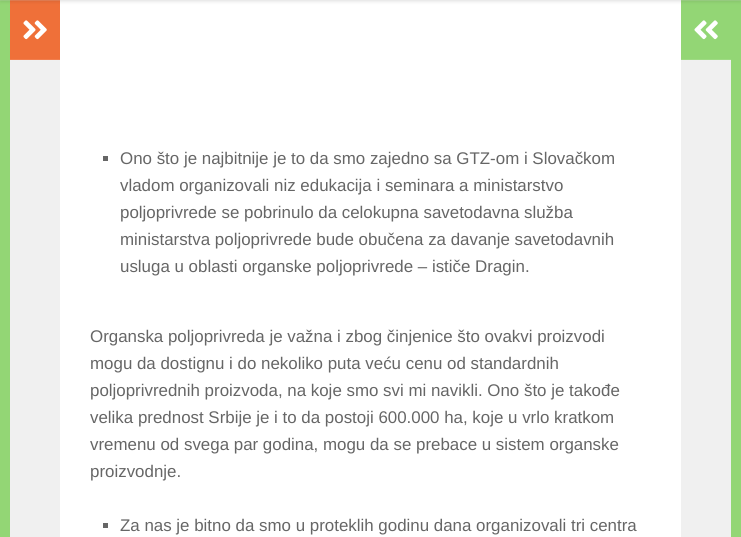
#include <cairo.h>
#include <math.h>
#include <stddef.h>

static cairo_t *c;
static void C(unsigned color){cairo_set_source_rgb(c, (color >> 16) / 255.0, (color >> 8 & 255) / 255.0, (color & 255) / 255.0);}
static void F(const char *family, double size, int italic, int bold){cairo_select_font_face(c, family, italic ? CAIRO_FONT_SLANT_ITALIC : CAIRO_FONT_SLANT_NORMAL,bold ? CAIRO_FONT_WEIGHT_BOLD : CAIRO_FONT_WEIGHT_NORMAL);cairo_set_font_size(c, size);}
static void T(double x, double y, const char *s){cairo_move_to(c, x, y);cairo_show_text(c, s);}
static void R(double x, double y, double w, double h){cairo_rectangle(c, x, y, w, h);cairo_fill(c);}
static void Q(double x, double y, double w, double h, double r){cairo_new_sub_path(c);cairo_arc(c, x + w - r, y + h - r, r, 0, M_PI / 2);cairo_arc(c, x + r, y + h - r, r, M_PI / 2, M_PI);cairo_arc(c, x + r, y + r, r, M_PI, 1.5 * M_PI);cairo_arc(c, x + w - r, y + r, r, 1.5 * M_PI, 2 * M_PI);cairo_close_path(c);}
static void S(double x, double y, double w, double h, double r, double blur, double alpha){cairo_push_group_with_content(c, CAIRO_CONTENT_ALPHA);cairo_set_operator(c, CAIRO_OPERATOR_SOURCE);for (int i = 15; i >= -15 && fmin(w, h) + blur * i / 3 > 0; i -= 2) {double e = blur * i / 6;cairo_set_source_rgba(c, 0, 0, 0, alpha * erfc((i - 1) / 8.5) / 2);Q(x - e, y - e, w + 2 * e, h + 2 * e, fmax(0, fmin(r + e + blur * .6, fmin(w, h) / 2 + e)));cairo_fill(c);}cairo_pattern_t *soft = cairo_pop_group(c);cairo_mask(c, soft);cairo_pattern_destroy(soft);}
static void I(const char *path, double x, double y, double w, double h){cairo_surface_t *image = cairo_image_surface_create_from_png(path);cairo_save(c);cairo_set_source_surface(c, image, x, y);cairo_rectangle(c, x, y, w, h);cairo_fill(c);cairo_restore(c);cairo_surface_destroy(image);}
int main(void) {
cairo_surface_t *surface = cairo_image_surface_create(CAIRO_FORMAT_RGB24, 741, 537);
c = cairo_create(surface);
cairo_font_options_t *options = cairo_font_options_create();
cairo_font_options_set_hint_metrics(options, CAIRO_HINT_METRICS_OFF);
cairo_font_options_set_hint_style(options, CAIRO_HINT_STYLE_NONE);
cairo_set_font_options(c, options);
cairo_set_miter_limit(c, 4);
C(0x93d675);
cairo_paint(c);
C(0xffffff);
R(60,0,621,537);
C(0xef7039);
R(10,0,50,59);
cairo_set_source_rgba(c,1,1,1,0.15);
R(0,0,741,1);
C(0x000000);
S(0,-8,741,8,0,2.5,.2);
C(0xf0f0f0);
R(10,60,50,477);
C(0xf17e4d);
R(10,59,50,1);
I("1.png",23,20,24,20);
C(0x9eda83);
R(681,59,50,1);
I("2.png",694,20,24,20);
C(0x666666);
R(103,156,5,5);
F("Liberation Sans",16.9,0,0);
T(120,164,"Ono što je najbitnije je to da smo zajedno sa GTZ-om i Slovačkom");
T(120,191,"vladom organizovali niz edukacija i seminara a ministarstvo");
T(120,218,"poljoprivrede se pobrinulo da celokupna savetodavna služba");
T(120,245,"ministarstva poljoprivrede bude obučena za davanje savetodavnih");
T(120,272,"usluga u oblasti organske poljoprivrede – ističe Dragin.");
T(90,342,"Organska poljoprivreda je važna i zbog činjenice što ovakvi proizvodi");
T(90,369,"mogu da dostignu i do nekoliko puta veću cenu od standardnih");
T(90,396,"poljoprivrednih proizvoda, na koje smo svi mi navikli. Ono što je takođe");
T(90,423,"velika prednost Srbije je i to da postoji 600.000 ha, koje u vrlo kratkom");
T(90,450,"vremenu od svega par godina, mogu da se prebace u sistem organske");
T(90,477,"proizvodnje.");
R(103,523,5,5);
T(120,531,"Za nas je bitno da smo u proteklih godinu dana organizovali tri centra");
C(0xf0f0f0);
R(681,60,50,477);
cairo_surface_write_to_png(surface, "o.png");
cairo_font_options_destroy(options);
cairo_destroy(c);
cairo_surface_destroy(surface);
return 0;
}
